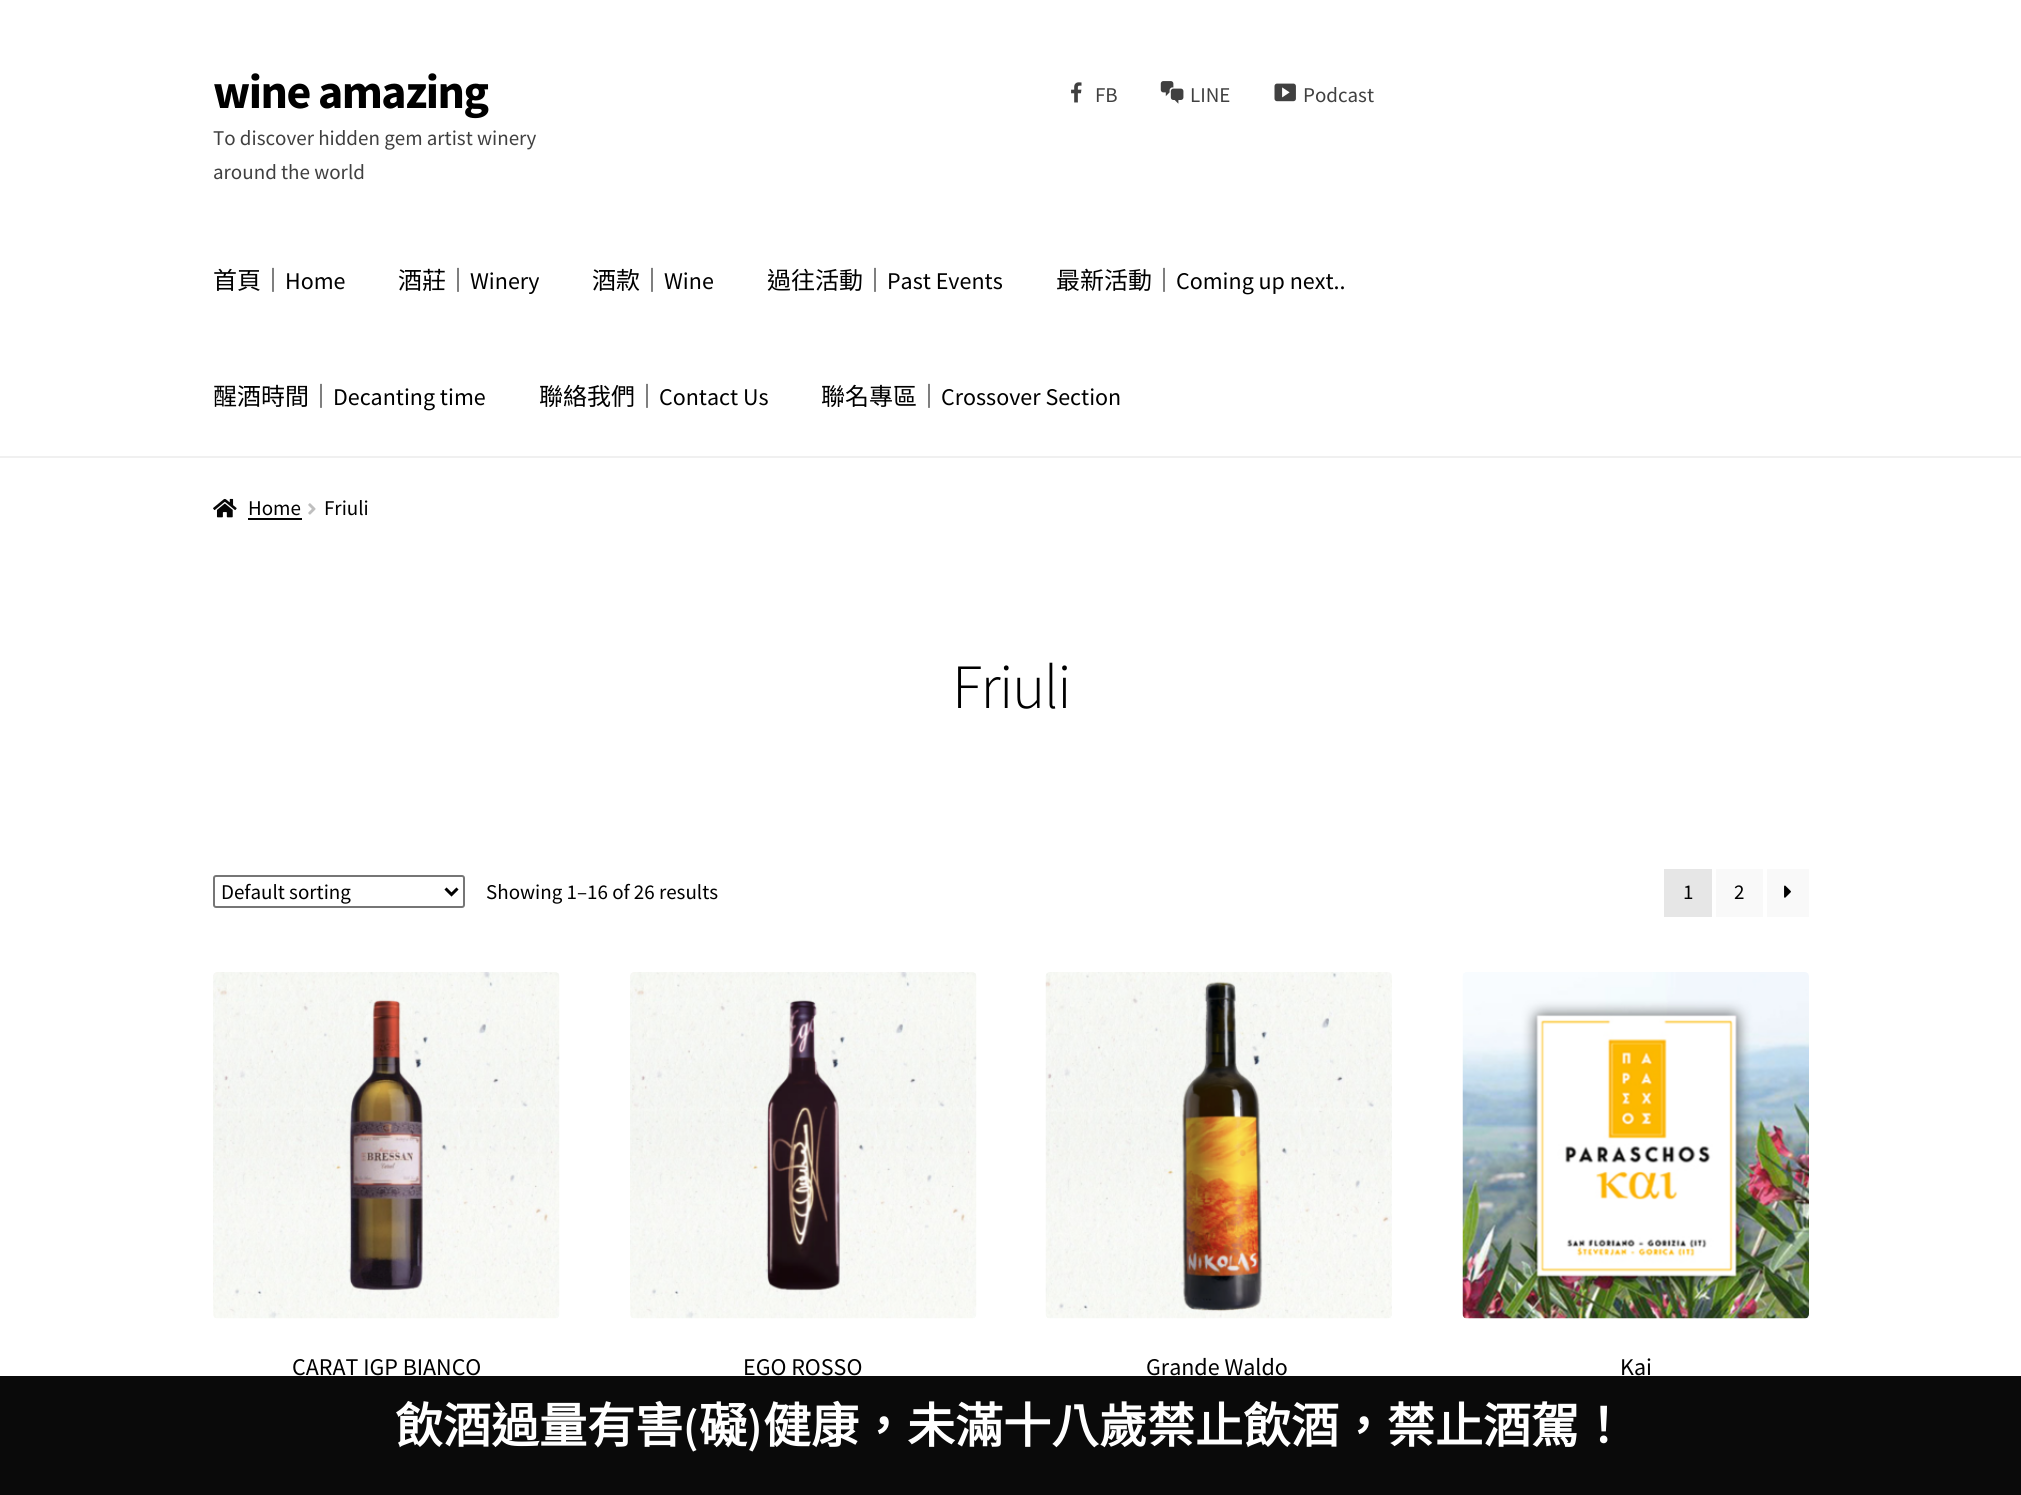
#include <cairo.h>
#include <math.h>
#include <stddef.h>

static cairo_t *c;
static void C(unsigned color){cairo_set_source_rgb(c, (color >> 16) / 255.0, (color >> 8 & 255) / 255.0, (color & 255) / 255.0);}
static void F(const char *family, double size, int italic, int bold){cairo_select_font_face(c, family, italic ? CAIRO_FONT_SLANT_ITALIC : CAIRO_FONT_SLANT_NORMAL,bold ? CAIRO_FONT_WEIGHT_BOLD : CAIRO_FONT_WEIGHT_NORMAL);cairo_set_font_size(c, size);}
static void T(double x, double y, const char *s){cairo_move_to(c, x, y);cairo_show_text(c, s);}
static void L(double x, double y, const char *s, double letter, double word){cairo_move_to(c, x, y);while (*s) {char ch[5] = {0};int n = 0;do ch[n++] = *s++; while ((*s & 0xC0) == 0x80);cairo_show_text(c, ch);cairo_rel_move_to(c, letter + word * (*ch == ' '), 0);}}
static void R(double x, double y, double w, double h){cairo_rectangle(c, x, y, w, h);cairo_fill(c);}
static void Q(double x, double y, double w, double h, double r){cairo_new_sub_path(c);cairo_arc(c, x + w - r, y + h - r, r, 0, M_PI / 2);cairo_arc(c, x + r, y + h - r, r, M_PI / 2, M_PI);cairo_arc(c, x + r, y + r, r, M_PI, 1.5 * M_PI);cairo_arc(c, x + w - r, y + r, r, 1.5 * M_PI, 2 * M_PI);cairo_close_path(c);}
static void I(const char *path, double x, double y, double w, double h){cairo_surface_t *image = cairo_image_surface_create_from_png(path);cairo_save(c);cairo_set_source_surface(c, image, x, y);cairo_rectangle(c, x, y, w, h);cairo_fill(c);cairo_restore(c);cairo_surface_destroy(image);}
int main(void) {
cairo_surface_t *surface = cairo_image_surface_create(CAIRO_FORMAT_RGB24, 2021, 1495);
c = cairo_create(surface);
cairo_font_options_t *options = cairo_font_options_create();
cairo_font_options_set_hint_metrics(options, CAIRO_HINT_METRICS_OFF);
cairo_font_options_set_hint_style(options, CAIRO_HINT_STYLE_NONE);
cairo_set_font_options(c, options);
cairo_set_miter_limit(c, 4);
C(0xffffff);
cairo_paint(c);
C(0xf0f0f0);
R(0,456,2021,2);
F("Source Sans Pro",48,0,1);
C(0x000000);
L(213,108,"wine amazing",-1.5,0);
F("Source Sans Pro",21,0,0);
C(0x404040);
T(213,145,"To discover hidden gem artist winery");
T(213,179,"around the world");
I("1.png",1071,82,11,21);
T(1095,102,"FB");
I("2.png",1160,81,24,23);
T(1190,102,"LINE");
I("3.png",1274,83,22,19);
T(1303,102,"Podcast");
F("Noto Sans CJK TC",24,0,0);
C(0x000000);
T(213,289,"首頁｜");
F("Source Sans Pro",24,0,0);
T(285,289,"Home");
F("Noto Sans CJK TC",24,0,0);
T(398,289,"酒莊｜");
F("Source Sans Pro",24,0,0);
T(470,289,"Winery");
F("Noto Sans CJK TC",24,0,0);
T(592,289,"酒款｜");
F("Source Sans Pro",24,0,0);
T(664,289,"Wine");
F("Noto Sans CJK TC",24,0,0);
T(767,289,"過往活動｜");
F("Source Sans Pro",24,0,0);
T(887,289,"Past Events");
F("Noto Sans CJK TC",24,0,0);
T(1056,289,"最新活動｜");
F("Source Sans Pro",24,0,0);
T(1176,289,"Coming up next..");
F("Noto Sans CJK TC",24,0,0);
T(213,405,"醒酒時間｜");
F("Source Sans Pro",24,0,0);
T(333,405,"Decanting time");
F("Noto Sans CJK TC",24,0,0);
T(539,405,"聯絡我們｜");
F("Source Sans Pro",24,0,0);
T(659,405,"Contact Us");
F("Noto Sans CJK TC",24,0,0);
T(821,405,"聯名專區｜");
F("Source Sans Pro",24,0,0);
T(941,405,"Crossover Section");
I("4.png",213,498,24,20);
F("Source Sans Pro",21,0,0);
T(248,515,"Home");
C(0x050505);
R(248,518,54,2);
I("5.png",308,503,8,12);
C(0x000000);
T(324,515,"Friuli");
F("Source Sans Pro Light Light",63,0,0);
L(952,708,"Friuli",-1.5,0);
Q(214,876,250,31,2);
C(0x767676);
cairo_stroke(c);
cairo_new_path(c);
cairo_move_to(c,445.5,888.5);
cairo_line_to(c,451.5,894.5);
cairo_line_to(c,457.5,888.5);
C(0x000000);
cairo_set_line_width(c,3);
cairo_stroke(c);
F("Source Sans Pro",21,0,0);
T(221,899,"Default sorting");
T(486,899,"Showing 1–16 of 26 results");
C(0xe6e6e6);
R(1664,869,48,48);
C(0x000000);
T(1683,899,"1");
C(0xf9f9f9);
R(1716,869,47,48);
C(0x000000);
T(1734,899,"2");
C(0xf9f9f9);
R(1767,869,42,48);
I("6.png",1784,885,7,13);
I("7.png",213,972,347,347);
F("Source Sans Pro",24,0,0);
C(0x000000);
T(292,1375,"CARAT IGP BIANCO");
I("8.png",630,972,347,347);
T(743,1375,"EGO ROSSO");
I("9.png",1045,972,347,347);
T(1146,1375,"Grande Waldo");
I("10.png",1462,972,347,347);
T(1620,1375,"Kai");
C(0x0a0a0a);
R(0,1376,2021,119);
F("Noto Sans CJK TC",48,0,1);
C(0xffffff);
T(395,1443,"飲酒過量有害");
F("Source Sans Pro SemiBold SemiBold",48,0,0);
T(683,1443,"(");
F("Noto Sans CJK TC",48,0,1);
T(699,1443,"礙");
F("Source Sans Pro SemiBold SemiBold",48,0,0);
T(747,1443,")");
F("Noto Sans CJK TC",48,0,1);
T(763,1443,"健康，未滿十八歲禁止飲酒，禁止酒駕！");
cairo_surface_write_to_png(surface, "o.png");
cairo_font_options_destroy(options);
cairo_destroy(c);
cairo_surface_destroy(surface);
return 0;
}
